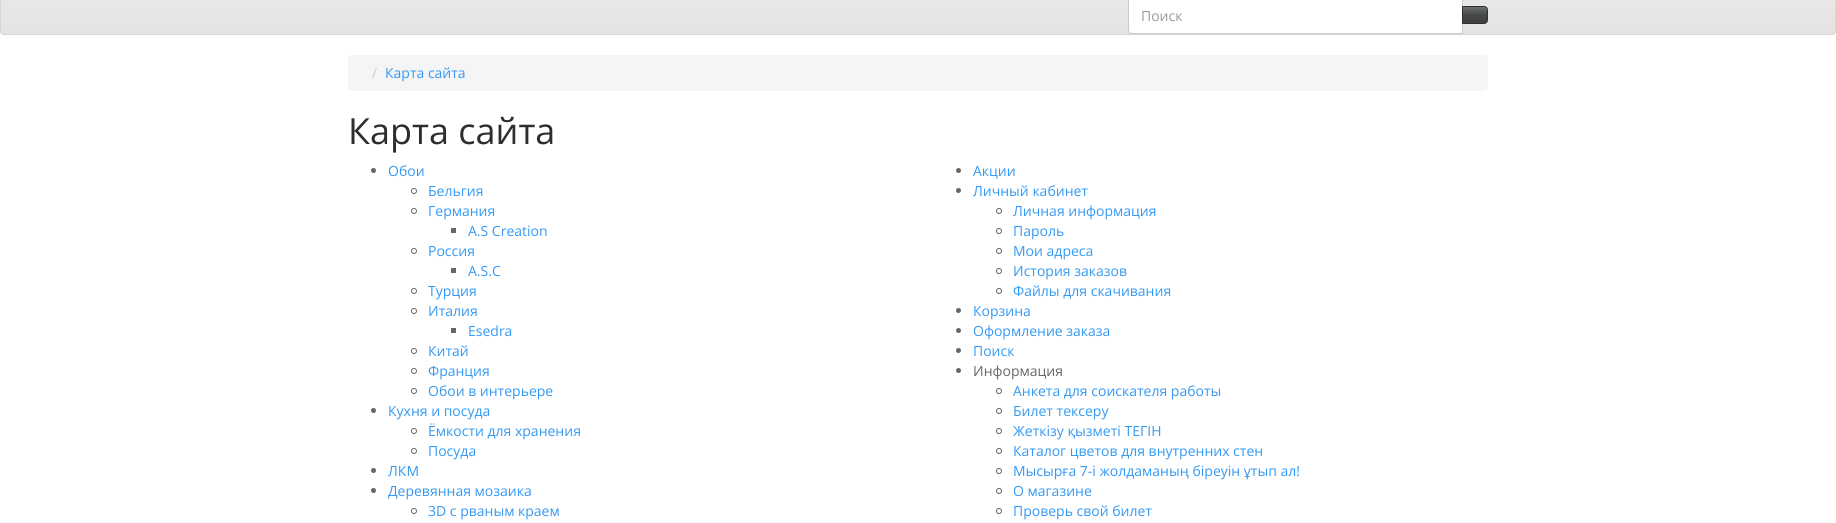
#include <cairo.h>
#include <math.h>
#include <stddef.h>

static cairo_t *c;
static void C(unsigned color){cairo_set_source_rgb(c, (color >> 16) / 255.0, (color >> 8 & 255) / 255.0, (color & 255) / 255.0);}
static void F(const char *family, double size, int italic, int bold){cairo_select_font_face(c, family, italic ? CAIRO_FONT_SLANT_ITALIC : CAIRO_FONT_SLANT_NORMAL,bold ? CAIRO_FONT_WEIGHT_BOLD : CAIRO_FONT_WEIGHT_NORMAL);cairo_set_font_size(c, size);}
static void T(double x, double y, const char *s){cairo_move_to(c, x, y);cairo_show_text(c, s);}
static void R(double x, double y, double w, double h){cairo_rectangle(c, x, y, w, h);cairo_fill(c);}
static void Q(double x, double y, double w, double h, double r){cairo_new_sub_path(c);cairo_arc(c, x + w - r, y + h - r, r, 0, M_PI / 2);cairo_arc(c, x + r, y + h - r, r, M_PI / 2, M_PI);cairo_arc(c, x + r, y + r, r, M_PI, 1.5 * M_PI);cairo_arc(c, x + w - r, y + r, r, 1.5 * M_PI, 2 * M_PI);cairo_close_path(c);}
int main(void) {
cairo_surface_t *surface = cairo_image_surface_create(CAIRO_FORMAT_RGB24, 1836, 523);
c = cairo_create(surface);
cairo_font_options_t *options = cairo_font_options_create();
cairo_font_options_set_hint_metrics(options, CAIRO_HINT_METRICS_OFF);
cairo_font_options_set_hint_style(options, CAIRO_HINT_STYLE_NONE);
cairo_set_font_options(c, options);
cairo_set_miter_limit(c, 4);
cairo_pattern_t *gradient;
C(0xffffff);
cairo_paint(c);
gradient = cairo_pattern_create_linear(918,-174,918,34);
cairo_pattern_add_color_stop_rgba(gradient,0,1,1,1,1);
cairo_pattern_add_color_stop_rgba(gradient,.5,0.933,0.933,0.933,1);
cairo_pattern_add_color_stop_rgba(gradient,1,0.894,0.894,0.894,1);
cairo_set_source(c,gradient);
cairo_pattern_destroy(gradient);
R(1,0,1834,34);
Q(.5,-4.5,1835,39,3.5);
C(0xd5d5d5);
cairo_set_line_width(c,1);
cairo_stroke(c);
C(0xffffff);
cairo_new_path(c);
cairo_move_to(c,1132,-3.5);
cairo_line_to(c,1462.5,-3.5);
cairo_line_to(c,1462.5,33.5);
cairo_line_to(c,1132,33.5);
cairo_curve_to(c,1130,33.5,1128.5,32,1128.5,30);
cairo_line_to(c,1128.5,0);
cairo_curve_to(c,1128.5,-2,1130,-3.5,1132,-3.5);
cairo_close_path(c);
cairo_fill_preserve(c);
C(0xcccccc);
cairo_stroke(c);
F("Open Sans",14,0,0);
C(0x999999);
T(1141,21,"Поиск");
gradient = cairo_pattern_create_linear(1475,7,1475,23);
cairo_pattern_add_color_stop_rgba(gradient,0,0.427,0.439,0.439,1);
cairo_pattern_add_color_stop_rgba(gradient,.5,0.278,0.286,0.286,1);
cairo_pattern_add_color_stop_rgba(gradient,1,0.239,0.247,0.247,1);
cairo_set_source(c,gradient);
cairo_pattern_destroy(gradient);
R(1463,7,24,16);
cairo_new_path(c);
cairo_move_to(c,1462.5,6.5);
cairo_line_to(c,1484,6.5);
cairo_curve_to(c,1486,6.5,1487.5,8,1487.5,10);
cairo_line_to(c,1487.5,20);
cairo_curve_to(c,1487.5,22,1486,23.5,1484,23.5);
cairo_line_to(c,1462.5,23.5);
cairo_close_path(c);
C(0x2e2f2f);
cairo_stroke(c);
C(0xf5f5f5);
Q(348,55,1140,36,4);
cairo_fill(c);
C(0xcccccc);
T(372,78,"/");
C(0x3399f3);
T(385,78,"Карта сайта");
F("Open Sans",36,0,0);
C(0x2d2d2d);
T(348,144,"Карта сайта");
C(0x666666);
cairo_new_path(c);
cairo_arc(c,373.5,170.5,2.5,0,2 * M_PI);
cairo_fill(c);
F("Open Sans",14,0,0);
C(0x3399f3);
T(388,176,"Обои");
cairo_new_path(c);
cairo_arc(c,414,191,2.5,0,2 * M_PI);
C(0x666666);
cairo_stroke(c);
C(0x3399f3);
T(428,196,"Бельгия");
cairo_new_path(c);
cairo_arc(c,414,211,2.5,0,2 * M_PI);
C(0x666666);
cairo_stroke(c);
C(0x3399f3);
T(428,216,"Германия");
C(0x666666);
R(451,228,5,5);
C(0x3399f3);
T(468,236,"A.S Creation");
cairo_new_path(c);
cairo_arc(c,414,251,2.5,0,2 * M_PI);
C(0x666666);
cairo_stroke(c);
C(0x3399f3);
T(428,256,"Россия");
C(0x666666);
R(451,268,5,5);
C(0x3399f3);
T(468,276,"A.S.C");
cairo_new_path(c);
cairo_arc(c,414,291,2.5,0,2 * M_PI);
C(0x666666);
cairo_stroke(c);
C(0x3399f3);
T(428,296,"Турция");
cairo_new_path(c);
cairo_arc(c,414,311,2.5,0,2 * M_PI);
C(0x666666);
cairo_stroke(c);
C(0x3399f3);
T(428,316,"Италия");
C(0x666666);
R(451,328,5,5);
C(0x3399f3);
T(468,336,"Esedra");
cairo_new_path(c);
cairo_arc(c,414,351,2.5,0,2 * M_PI);
C(0x666666);
cairo_stroke(c);
C(0x3399f3);
T(428,356,"Китай");
cairo_new_path(c);
cairo_arc(c,414,371,2.5,0,2 * M_PI);
C(0x666666);
cairo_stroke(c);
C(0x3399f3);
T(428,376,"Франция");
cairo_new_path(c);
cairo_arc(c,414,391,2.5,0,2 * M_PI);
C(0x666666);
cairo_stroke(c);
C(0x3399f3);
T(428,396,"Обои в интерьере");
C(0x666666);
cairo_new_path(c);
cairo_arc(c,373.5,410.5,2.5,0,2 * M_PI);
cairo_fill(c);
C(0x3399f3);
T(388,416,"Кухня и посуда");
cairo_new_path(c);
cairo_arc(c,414,431,2.5,0,2 * M_PI);
C(0x666666);
cairo_stroke(c);
C(0x3399f3);
T(428,436,"Ёмкости для хранения");
cairo_new_path(c);
cairo_arc(c,414,451,2.5,0,2 * M_PI);
C(0x666666);
cairo_stroke(c);
C(0x3399f3);
T(428,456,"Посуда");
C(0x666666);
cairo_new_path(c);
cairo_arc(c,373.5,470.5,2.5,0,2 * M_PI);
cairo_fill(c);
C(0x3399f3);
T(388,476,"ЛКМ");
C(0x666666);
cairo_new_path(c);
cairo_arc(c,373.5,490.5,2.5,0,2 * M_PI);
cairo_fill(c);
C(0x3399f3);
T(388,496,"Деревянная мозаика");
cairo_new_path(c);
cairo_arc(c,414,511,2.5,0,2 * M_PI);
C(0x666666);
cairo_stroke(c);
C(0x3399f3);
T(428,516,"3D с рваным краем");
C(0x666666);
cairo_new_path(c);
cairo_arc(c,958.5,170.5,2.5,0,2 * M_PI);
cairo_fill(c);
C(0x3399f3);
T(973,176,"Акции");
C(0x666666);
cairo_new_path(c);
cairo_arc(c,958.5,190.5,2.5,0,2 * M_PI);
cairo_fill(c);
C(0x3399f3);
T(973,196,"Личный кабинет");
cairo_new_path(c);
cairo_arc(c,999,211,2.5,0,2 * M_PI);
C(0x666666);
cairo_stroke(c);
C(0x3399f3);
T(1013,216,"Личная информация");
cairo_new_path(c);
cairo_arc(c,999,231,2.5,0,2 * M_PI);
C(0x666666);
cairo_stroke(c);
C(0x3399f3);
T(1013,236,"Пароль");
cairo_new_path(c);
cairo_arc(c,999,251,2.5,0,2 * M_PI);
C(0x666666);
cairo_stroke(c);
C(0x3399f3);
T(1013,256,"Мои адреса");
cairo_new_path(c);
cairo_arc(c,999,271,2.5,0,2 * M_PI);
C(0x666666);
cairo_stroke(c);
C(0x3399f3);
T(1013,276,"История заказов");
cairo_new_path(c);
cairo_arc(c,999,291,2.5,0,2 * M_PI);
C(0x666666);
cairo_stroke(c);
C(0x3399f3);
T(1013,296,"Файлы для скачивания");
C(0x666666);
cairo_new_path(c);
cairo_arc(c,958.5,310.5,2.5,0,2 * M_PI);
cairo_fill(c);
C(0x3399f3);
T(973,316,"Корзина");
C(0x666666);
cairo_new_path(c);
cairo_arc(c,958.5,330.5,2.5,0,2 * M_PI);
cairo_fill(c);
C(0x3399f3);
T(973,336,"Оформление заказа");
C(0x666666);
cairo_new_path(c);
cairo_arc(c,958.5,350.5,2.5,0,2 * M_PI);
cairo_fill(c);
C(0x3399f3);
T(973,356,"Поиск");
C(0x666666);
cairo_new_path(c);
cairo_arc(c,958.5,370.5,2.5,0,2 * M_PI);
cairo_fill(c);
T(973,376,"Информация");
cairo_new_path(c);
cairo_arc(c,999,391,2.5,0,2 * M_PI);
cairo_stroke(c);
C(0x3399f3);
T(1013,396,"Анкета для соискателя работы");
cairo_new_path(c);
cairo_arc(c,999,411,2.5,0,2 * M_PI);
C(0x666666);
cairo_stroke(c);
C(0x3399f3);
T(1013,416,"Билет тексеру");
cairo_new_path(c);
cairo_arc(c,999,431,2.5,0,2 * M_PI);
C(0x666666);
cairo_stroke(c);
C(0x3399f3);
T(1013,436,"Жеткізу қызметі ТЕГІН");
cairo_new_path(c);
cairo_arc(c,999,451,2.5,0,2 * M_PI);
C(0x666666);
cairo_stroke(c);
C(0x3399f3);
T(1013,456,"Каталог цветов для внутренних стен");
cairo_new_path(c);
cairo_arc(c,999,471,2.5,0,2 * M_PI);
C(0x666666);
cairo_stroke(c);
C(0x3399f3);
T(1013,476,"Мысырға 7-і жолдаманың біреуін ұтып ал!");
cairo_new_path(c);
cairo_arc(c,999,491,2.5,0,2 * M_PI);
C(0x666666);
cairo_stroke(c);
C(0x3399f3);
T(1013,496,"О магазине");
cairo_new_path(c);
cairo_arc(c,999,511,2.5,0,2 * M_PI);
C(0x666666);
cairo_stroke(c);
C(0x3399f3);
T(1013,516,"Проверь свой билет");
cairo_surface_write_to_png(surface, "o.png");
cairo_font_options_destroy(options);
cairo_destroy(c);
cairo_surface_destroy(surface);
return 0;
}
